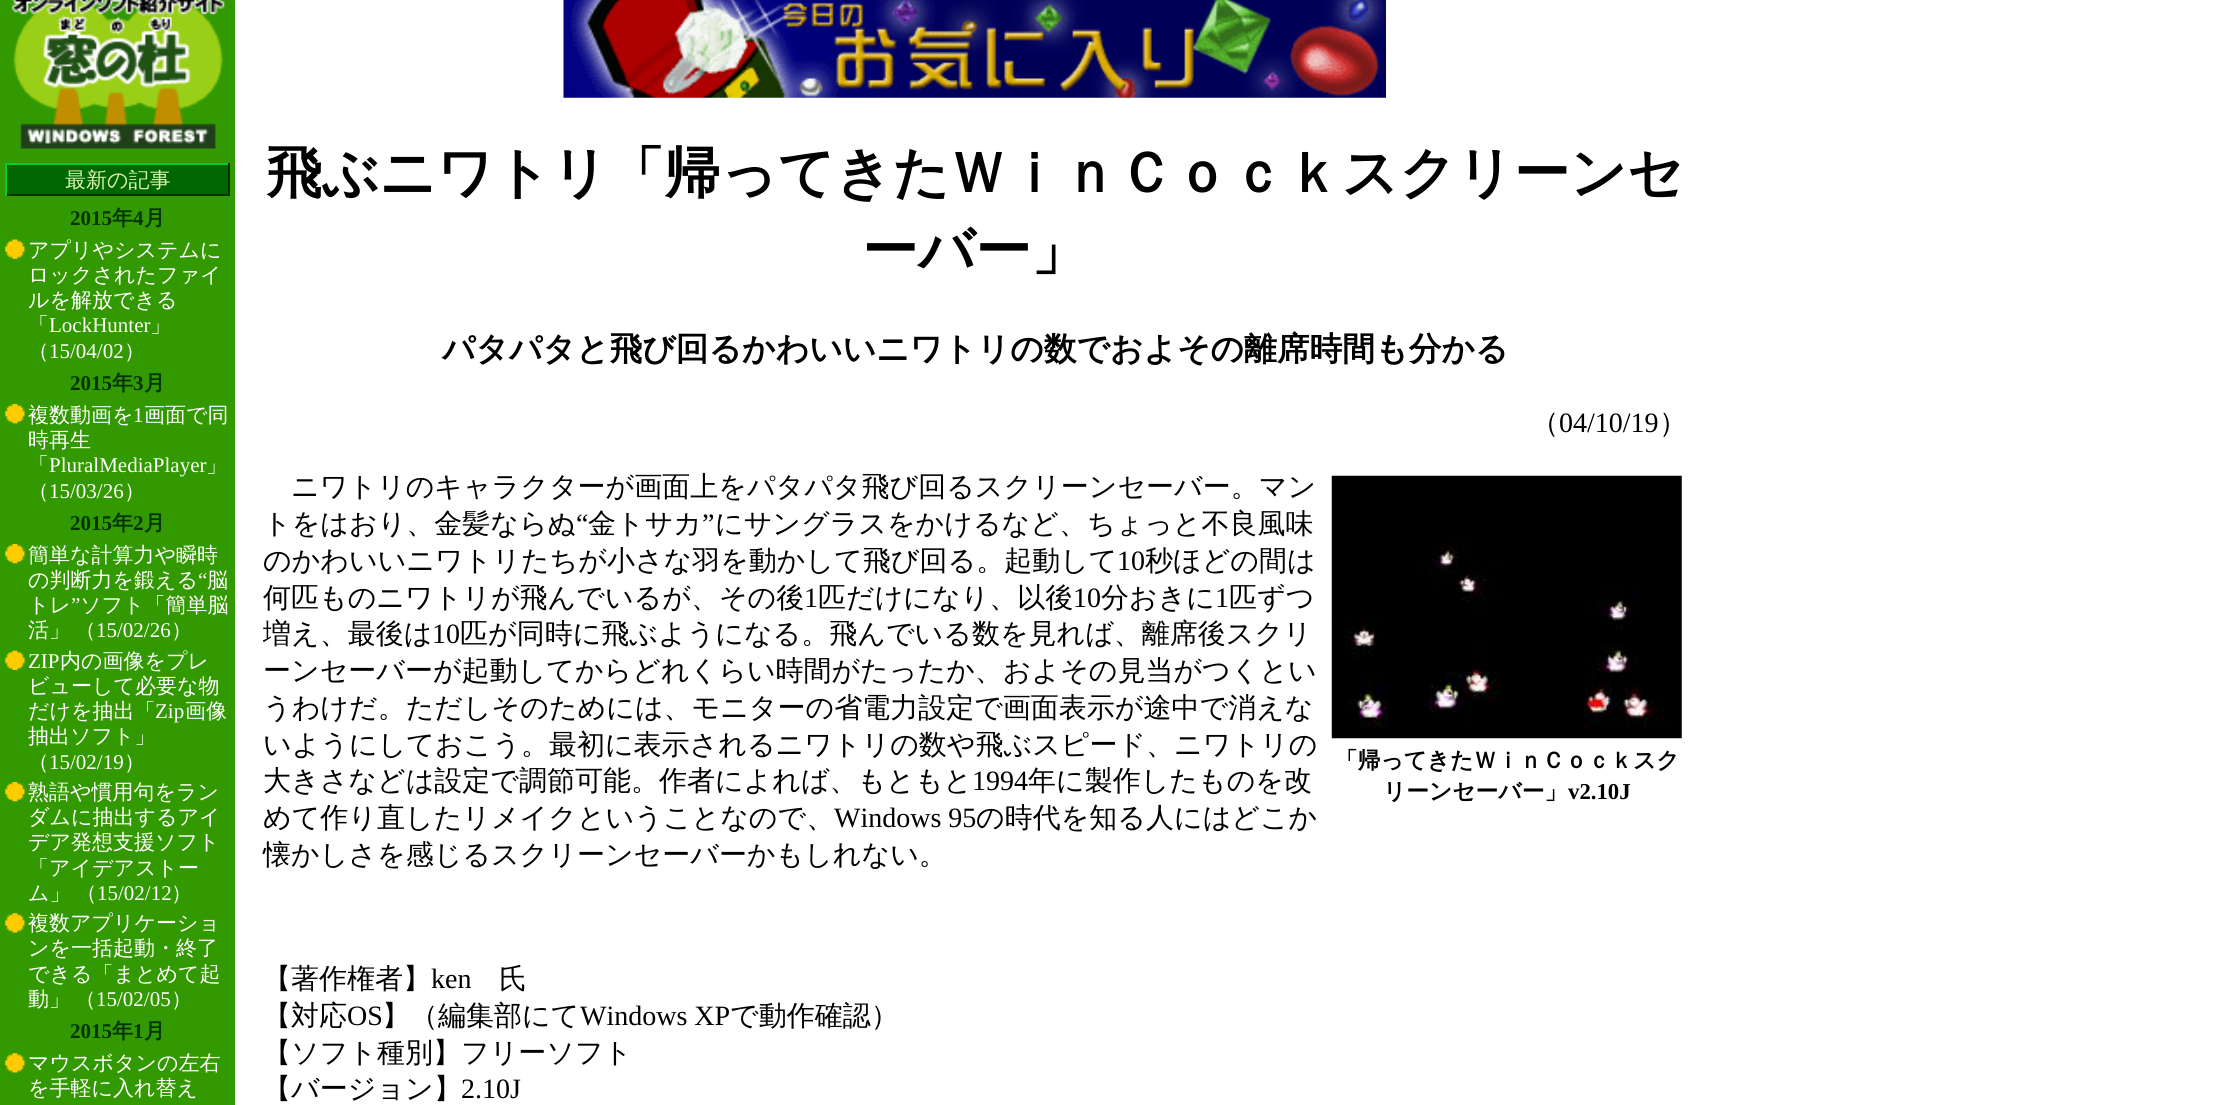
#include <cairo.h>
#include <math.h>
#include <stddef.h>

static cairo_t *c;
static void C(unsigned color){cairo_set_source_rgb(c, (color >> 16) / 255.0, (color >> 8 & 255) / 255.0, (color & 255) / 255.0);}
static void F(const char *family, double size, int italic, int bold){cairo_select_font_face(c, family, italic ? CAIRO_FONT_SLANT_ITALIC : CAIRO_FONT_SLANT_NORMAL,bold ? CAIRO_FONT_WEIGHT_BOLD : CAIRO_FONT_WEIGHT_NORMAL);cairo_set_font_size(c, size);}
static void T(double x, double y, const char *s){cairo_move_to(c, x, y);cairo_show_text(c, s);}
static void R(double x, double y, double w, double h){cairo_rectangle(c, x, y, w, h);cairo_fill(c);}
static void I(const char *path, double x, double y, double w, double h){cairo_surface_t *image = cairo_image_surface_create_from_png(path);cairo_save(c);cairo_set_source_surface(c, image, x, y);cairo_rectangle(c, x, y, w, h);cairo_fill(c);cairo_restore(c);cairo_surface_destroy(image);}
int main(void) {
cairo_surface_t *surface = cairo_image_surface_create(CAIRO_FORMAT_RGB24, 2237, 1105);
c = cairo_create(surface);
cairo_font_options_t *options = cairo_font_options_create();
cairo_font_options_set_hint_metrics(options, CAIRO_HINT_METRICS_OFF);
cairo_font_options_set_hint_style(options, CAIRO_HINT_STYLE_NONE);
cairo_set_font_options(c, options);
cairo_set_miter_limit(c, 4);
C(0xffffff);
cairo_paint(c);
C(0x339900);
R(0,0,235,1105);
I("1.png",10,0,216,149);
C(0x006600);
R(7,165,221,29);
C(0x00cc33);
R(5,163,224,2);
C(0x003300);
R(228,163,2,33);
R(5,194,224,2);
C(0x00cc33);
R(5,163,2,33);
F("WenQuanYi Zen Hei Medium",21,0,0);
C(0xdcf4b1);
T(65,187,"最新の記事");
F("Liberation Serif",21,0,1);
C(0x003300);
T(70,225,"2015");
F("WenQuanYi Zen Hei",21,0,1);
T(112,225,"年");
F("Liberation Serif",21,0,1);
T(133,225,"4");
F("WenQuanYi Zen Hei",21,0,1);
T(144,225,"月");
I("2.png",5,239,20,20);
F("WenQuanYi Zen Hei Medium",21,0,0);
C(0xffffff);
T(28,257,"アプリやシステムに");
T(28,282,"ロックされたファイ");
T(28,307,"ルを解放できる");
T(28,332,"「");
F("Liberation Serif",21,0,0);
T(49,332,"LockHunter");
F("WenQuanYi Zen Hei Medium",21,0,0);
T(150,332,"」");
T(28,358,"（");
F("Liberation Serif",21,0,0);
T(49,358,"15/04/02");
F("WenQuanYi Zen Hei Medium",21,0,0);
T(124,358,"）");
F("Liberation Serif",21,0,1);
C(0x003300);
T(70,390,"2015");
F("WenQuanYi Zen Hei",21,0,1);
T(112,390,"年");
F("Liberation Serif",21,0,1);
T(133,390,"3");
F("WenQuanYi Zen Hei",21,0,1);
T(144,390,"月");
I("3.png",5,404,20,20);
F("WenQuanYi Zen Hei Medium",21,0,0);
C(0xffffff);
T(28,422,"複数動画を");
F("Liberation Serif",21,0,0);
T(133,422,"1");
F("WenQuanYi Zen Hei Medium",21,0,0);
T(144,422,"画面で同");
T(28,447,"時再生");
T(28,472,"「");
F("Liberation Serif",21,0,0);
T(49,472,"PluralMediaPlayer");
F("WenQuanYi Zen Hei Medium",21,0,0);
T(206,472,"」");
T(28,498,"（");
F("Liberation Serif",21,0,0);
T(49,498,"15/03/26");
F("WenQuanYi Zen Hei Medium",21,0,0);
T(124,498,"）");
F("Liberation Serif",21,0,1);
C(0x003300);
T(70,530,"2015");
F("WenQuanYi Zen Hei",21,0,1);
T(112,530,"年");
F("Liberation Serif",21,0,1);
T(133,530,"2");
F("WenQuanYi Zen Hei",21,0,1);
T(144,530,"月");
I("3.png",5,544,20,20);
F("WenQuanYi Zen Hei Medium",21,0,0);
C(0xffffff);
T(28,562,"簡単な計算力や瞬時");
T(28,587,"の判断力を鍛える");
F("Liberation Serif",21,0,0);
T(198,587,"“");
F("WenQuanYi Zen Hei Medium",21,0,0);
T(207,587,"脳");
T(28,612,"トレ");
F("Liberation Serif",21,0,0);
T(71,612,"”");
F("WenQuanYi Zen Hei Medium",21,0,0);
T(80,612,"ソフト「簡単脳");
T(28,637,"活」");
T(75,637,"（");
F("Liberation Serif",21,0,0);
T(96,637,"15/02/26");
F("WenQuanYi Zen Hei Medium",21,0,0);
T(171,637,"）");
I("4.png",5,650,20,20);
F("Liberation Serif",21,0,0);
T(28,668,"ZIP");
F("WenQuanYi Zen Hei Medium",21,0,0);
T(60,668,"内の画像をプレ");
T(28,693,"ビューして必要な物");
T(28,718,"だけを抽出「");
F("Liberation Serif",21,0,0);
T(155,718,"Zip");
F("WenQuanYi Zen Hei Medium",21,0,0);
T(185,718,"画像");
T(28,743,"抽出ソフト」");
T(28,769,"（");
F("Liberation Serif",21,0,0);
T(49,769,"15/02/19");
F("WenQuanYi Zen Hei Medium",21,0,0);
T(124,769,"）");
I("3.png",5,782,20,20);
T(28,799,"熟語や慣用句をラン");
T(28,824,"ダムに抽出するアイ");
T(28,849,"デア発想支援ソフト");
T(28,875,"「アイデアストー");
T(28,900,"ム」");
T(76,900,"（");
F("Liberation Serif",21,0,0);
T(97,900,"15/02/12");
F("WenQuanYi Zen Hei Medium",21,0,0);
T(171,900,"）");
I("5.png",5,913,20,20);
T(28,930,"複数アプリケーショ");
T(28,955,"ンを一括起動・終了");
T(28,981,"できる「まとめて起");
T(28,1006,"動」");
T(75,1006,"（");
F("Liberation Serif",21,0,0);
T(96,1006,"15/02/05");
F("WenQuanYi Zen Hei Medium",21,0,0);
T(171,1006,"）");
F("Liberation Serif",21,0,1);
C(0x003300);
T(70,1038,"2015");
F("WenQuanYi Zen Hei",21,0,1);
T(112,1038,"年");
F("Liberation Serif",21,0,1);
T(133,1038,"1");
F("WenQuanYi Zen Hei",21,0,1);
T(144,1038,"月");
I("5.png",5,1053,20,20);
F("WenQuanYi Zen Hei Medium",21,0,0);
C(0xffffff);
T(28,1070,"マウスボタンの左右");
T(28,1095,"を手軽に入れ替え");
I("6.png",563,0,823,98);
F("WenQuanYi Zen Hei",56,0,1);
C(0x000000);
T(266,192,"飛ぶニワトリ「帰ってきたＷｉｎＣｏｃｋスクリーンセ");
T(862,269,"ーバー」");
F("WenQuanYi Zen Hei",32.75,0,1);
T(442,360,"パタパタと飛び回るかわいいニワトリの数でおよその離席時間も分かる");
F("WenQuanYi Zen Hei Medium",28,0,0);
T(1531,432,"（");
F("Liberation Serif",28,0,0);
T(1559,432,"04/10/19");
F("WenQuanYi Zen Hei Medium",28,0,0);
T(1659,432,"）");
T(291,496,"ニワトリのキャラクターが画面上をパタパタ飛び回るスクリーンセーバー。マン");
T(263,533,"トをはおり、金髪ならぬ");
F("Liberation Serif",28,0,0);
T(576,533,"“");
F("WenQuanYi Zen Hei Medium",28,0,0);
T(588,533,"金トサカ");
F("Liberation Serif",28,0,0);
T(702,533,"”");
F("WenQuanYi Zen Hei Medium",28,0,0);
T(715,533,"にサングラスをかけるなど、ちょっと不良風味");
T(263,570,"のかわいいニワトリたちが小さな羽を動かして飛び回る。起動して");
F("Liberation Serif",28,0,0);
T(1117,570,"10");
F("WenQuanYi Zen Hei Medium",28,0,0);
T(1145,570,"秒ほどの間は");
T(263,607,"何匹ものニワトリが飛んでいるが、その後");
F("Liberation Serif",28,0,0);
T(804,607,"1");
F("WenQuanYi Zen Hei Medium",28,0,0);
T(818,607,"匹だけになり、以後");
F("Liberation Serif",28,0,0);
T(1073,607,"10");
F("WenQuanYi Zen Hei Medium",28,0,0);
T(1101,607,"分おきに");
F("Liberation Serif",28,0,0);
T(1215,607,"1");
F("WenQuanYi Zen Hei Medium",28,0,0);
T(1229,607,"匹ずつ");
T(263,643,"増え、最後は");
F("Liberation Serif",28,0,0);
T(432,643,"10");
F("WenQuanYi Zen Hei Medium",28,0,0);
T(460,643,"匹が同時に飛ぶようになる。飛んでいる数を見れば、離席後スクリ");
T(263,680,"ーンセーバーが起動してからどれくらい時間がたったか、およその見当がつくとい");
T(263,717,"うわけだ。ただしそのためには、モニターの省電力設定で画面表示が途中で消えな");
T(263,754,"いようにしておこう。最初に表示されるニワトリの数や飛ぶスピード、ニワトリの");
T(263,790,"大きさなどは設定で調節可能。作者によれば、もともと");
F("Liberation Serif",28,0,0);
T(972,790,"1994");
F("WenQuanYi Zen Hei Medium",28,0,0);
T(1028,790,"年に製作したものを改");
I("7.png",1331,475,351,264);
F("WenQuanYi Zen Hei",22.75,0,1);
T(1335,768,"「帰ってきたＷｉｎＣｏｃｋスク");
T(1383,799,"リーンセーバー」");
F("Liberation Serif",22.75,0,1);
T(1568,799,"v2.10J");
F("WenQuanYi Zen Hei Medium",28,0,0);
T(263,827,"めて作り直したリメイクということなので、");
F("Liberation Serif",28,0,0);
T(834,827,"Windows 95");
F("WenQuanYi Zen Hei Medium",28,0,0);
T(976,827,"の時代を知る人にはどこか");
T(263,864,"懐かしさを感じるスクリーンセーバーかもしれない。");
T(263,988,"【著作権者】");
F("Liberation Serif",28,0,0);
T(431,988,"ken");
F("WenQuanYi Zen Hei Medium",28,0,0);
T(499,988,"氏");
T(263,1025,"【対応");
F("Liberation Serif",28,0,0);
T(347,1025,"OS");
F("WenQuanYi Zen Hei Medium",28,0,0);
T(382,1025,"】（編集部にて");
F("Liberation Serif",28,0,0);
T(580,1025,"Windows XP");
F("WenQuanYi Zen Hei Medium",28,0,0);
T(730,1025,"で動作確認）");
T(263,1062,"【ソフト種別】フリーソフト");
T(263,1098,"【バージョン】");
F("Liberation Serif",28,0,0);
T(461,1098,"2.10J");
cairo_surface_write_to_png(surface, "o.png");
cairo_font_options_destroy(options);
cairo_destroy(c);
cairo_surface_destroy(surface);
return 0;
}
